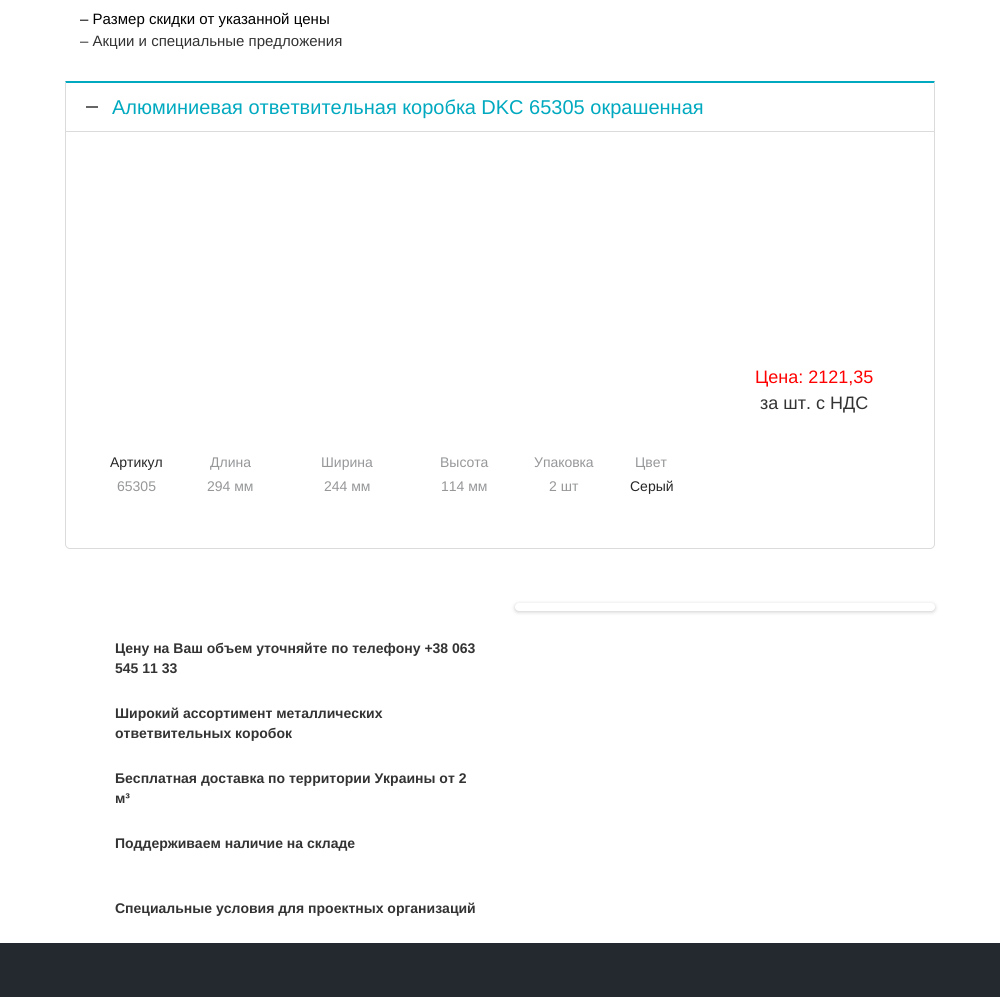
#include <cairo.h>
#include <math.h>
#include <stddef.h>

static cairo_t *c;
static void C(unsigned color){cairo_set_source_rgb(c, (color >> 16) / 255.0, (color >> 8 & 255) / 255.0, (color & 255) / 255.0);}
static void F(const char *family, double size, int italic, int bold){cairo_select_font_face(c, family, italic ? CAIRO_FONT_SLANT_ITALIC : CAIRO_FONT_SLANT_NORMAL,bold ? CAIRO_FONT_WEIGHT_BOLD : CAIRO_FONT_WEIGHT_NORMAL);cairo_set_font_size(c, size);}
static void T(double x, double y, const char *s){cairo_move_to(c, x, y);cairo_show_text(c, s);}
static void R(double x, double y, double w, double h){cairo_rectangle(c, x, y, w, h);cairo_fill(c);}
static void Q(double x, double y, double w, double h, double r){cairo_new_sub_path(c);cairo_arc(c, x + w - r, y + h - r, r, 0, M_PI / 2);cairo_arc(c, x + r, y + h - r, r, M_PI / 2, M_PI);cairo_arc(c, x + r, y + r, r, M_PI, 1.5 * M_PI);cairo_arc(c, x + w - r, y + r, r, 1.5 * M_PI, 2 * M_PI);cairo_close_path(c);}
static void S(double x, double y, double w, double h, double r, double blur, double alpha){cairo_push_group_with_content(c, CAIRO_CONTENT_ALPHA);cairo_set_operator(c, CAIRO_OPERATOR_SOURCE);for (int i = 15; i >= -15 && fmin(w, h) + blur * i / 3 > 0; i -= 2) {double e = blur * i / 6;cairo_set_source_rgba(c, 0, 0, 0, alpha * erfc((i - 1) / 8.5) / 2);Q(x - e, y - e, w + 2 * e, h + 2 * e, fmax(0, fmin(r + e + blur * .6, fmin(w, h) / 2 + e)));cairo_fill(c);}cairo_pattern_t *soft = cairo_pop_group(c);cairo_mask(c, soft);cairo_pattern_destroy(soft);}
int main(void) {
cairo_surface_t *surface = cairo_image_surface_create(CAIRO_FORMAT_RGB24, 1000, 997);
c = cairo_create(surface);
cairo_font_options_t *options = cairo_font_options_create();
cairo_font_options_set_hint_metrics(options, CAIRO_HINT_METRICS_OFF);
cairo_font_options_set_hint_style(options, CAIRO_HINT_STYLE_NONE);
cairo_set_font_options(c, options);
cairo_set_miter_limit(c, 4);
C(0xffffff);
cairo_paint(c);
F("Liberation Sans",15,0,0);
C(0x000000);
T(80,24,"– Размер скидки от указанной цены");
C(0x333333);
T(80,46,"– Акции и специальные предложения");
C(0x00a9bf);
cairo_new_path(c);
cairo_move_to(c,65,81);
cairo_line_to(c,935,81);
cairo_line_to(c,934,83);
cairo_line_to(c,66,83);
cairo_close_path(c);
cairo_fill(c);
C(0xdbdbdb);
cairo_new_path(c);
cairo_move_to(c,935,81);
cairo_line_to(c,935,132);
cairo_line_to(c,934,131);
cairo_line_to(c,934,83);
cairo_close_path(c);
cairo_fill(c);
cairo_new_path(c);
cairo_move_to(c,65,132);
cairo_line_to(c,65,81);
cairo_line_to(c,66,83);
cairo_line_to(c,66,131);
cairo_close_path(c);
cairo_fill(c);
C(0x666666);
R(86,106,12,2);
F("Liberation Sans",20,0,0);
C(0x00a9bf);
T(112,114,"Алюминиевая ответвительная коробка DKC 65305 окрашенная");
cairo_new_path(c);
cairo_move_to(c,65.5,131.5);
cairo_line_to(c,934.5,131.5);
cairo_line_to(c,934.5,544);
cairo_curve_to(c,934.5,546.5,932.5,548.5,930,548.5);
cairo_line_to(c,70,548.5);
cairo_curve_to(c,67.5,548.5,65.5,546.5,65.5,544);
cairo_close_path(c);
C(0xdbdbdb);
cairo_set_line_width(c,1);
cairo_stroke(c);
F("Liberation Sans",18,0,0);
C(0xff0000);
T(755,383,"Цена: 2121,35");
C(0x333333);
T(760,409,"за шт. с НДС");
F("Liberation Sans",14,0,0);
C(0x262626);
T(110,467,"Артикул");
C(0x969799);
T(210,467,"Длина");
T(321,467,"Ширина");
T(440,467,"Высота");
T(534,467,"Упаковка");
T(635,467,"Цвет");
T(117,491,"65305");
T(207,491,"294 мм");
T(324,491,"244 мм");
T(441,491,"114 мм");
T(549,491,"2 шт");
C(0x262626);
T(630,491,"Серый");
C(0x000000);
S(515,604,420,8,4,2,.2);
C(0xffffff);
Q(515,603,420,8,4);
cairo_fill(c);
F("Liberation Sans",14,0,1);
C(0x333333);
T(115,653,"Цену на Ваш объем уточняйте по телефону +38 063");
T(115,673,"545 11 33");
T(115,718,"Широкий ассортимент металлических");
T(115,738,"ответвительных коробок");
T(115,783,"Бесплатная доставка по территории Украины от 2");
T(115,803,"м³");
T(115,848,"Поддерживаем наличие на складе");
T(115,913,"Специальные условия для проектных организаций");
C(0x24282f);
R(0,943,1000,54);
cairo_surface_write_to_png(surface, "o.png");
cairo_font_options_destroy(options);
cairo_destroy(c);
cairo_surface_destroy(surface);
return 0;
}
